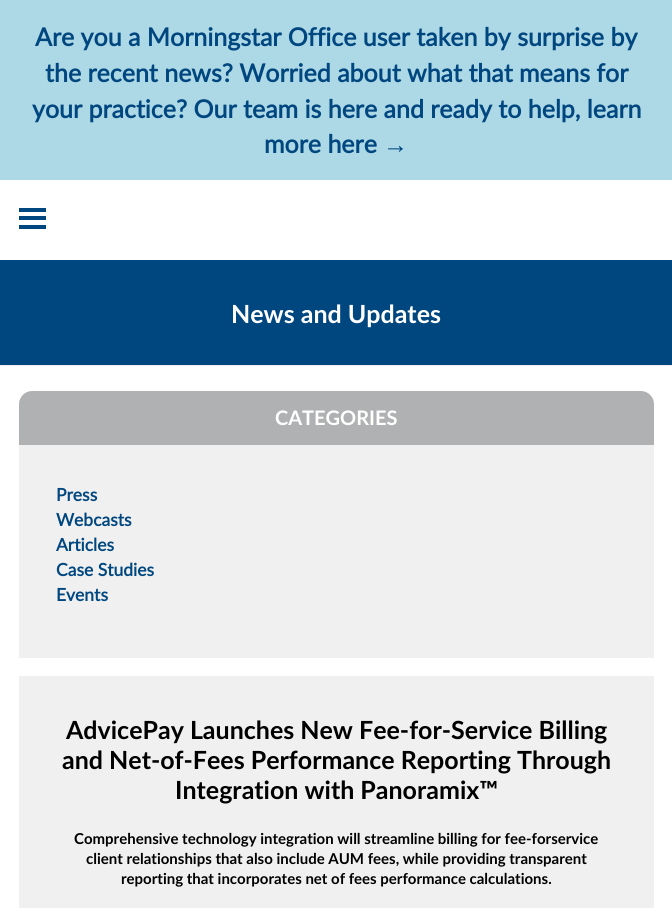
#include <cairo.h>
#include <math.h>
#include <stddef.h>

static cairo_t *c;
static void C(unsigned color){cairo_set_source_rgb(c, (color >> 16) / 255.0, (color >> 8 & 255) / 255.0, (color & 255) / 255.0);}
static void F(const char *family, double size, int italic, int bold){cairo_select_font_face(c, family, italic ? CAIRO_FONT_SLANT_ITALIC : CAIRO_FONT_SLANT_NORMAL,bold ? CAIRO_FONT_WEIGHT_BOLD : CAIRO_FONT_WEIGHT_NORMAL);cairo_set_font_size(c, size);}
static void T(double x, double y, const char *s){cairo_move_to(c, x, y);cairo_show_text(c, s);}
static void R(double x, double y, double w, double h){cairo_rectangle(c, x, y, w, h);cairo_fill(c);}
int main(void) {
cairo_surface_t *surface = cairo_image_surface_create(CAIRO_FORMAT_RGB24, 672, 908);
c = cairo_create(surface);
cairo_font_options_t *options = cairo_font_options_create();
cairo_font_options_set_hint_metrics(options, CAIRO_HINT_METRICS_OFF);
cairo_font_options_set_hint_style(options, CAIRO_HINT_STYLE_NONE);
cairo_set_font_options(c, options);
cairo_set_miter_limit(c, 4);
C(0xffffff);
cairo_paint(c);
C(0xadd8e6);
R(0,0,672,180);
F("Lato",25,0,1);
C(0x00467f);
T(35,46,"Are you a Morningstar Office user taken by surprise by");
T(45,82,"the recent news? Worried about what that means for");
T(32,118,"your practice? Our team is here and ready to help, learn");
T(264,153,"more here");
F("Liberation Sans",25,0,1);
T(383,153,"→");
R(19,208,27,4);
R(19,216,27,4);
R(19,225,27,4);
R(0,260,672,105);
C(0xeeeeee);
R(0,365,672,1);
F("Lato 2",25,0,1);
C(0xffffff);
T(231,323,"News and Updates");
C(0xb0b1b2);
cairo_new_path(c);
cairo_move_to(c,32,391);
cairo_line_to(c,641,391);
cairo_curve_to(c,648,391,654,397,654,404);
cairo_line_to(c,654,445);
cairo_line_to(c,19,445);
cairo_line_to(c,19,404);
cairo_curve_to(c,19,397,25,391,32,391);
cairo_close_path(c);
cairo_fill(c);
F("Lato 2",20,0,1);
C(0xffffff);
T(275,425,"CATEGORIES");
C(0xf0f0f0);
R(19,445,635,213);
F("Lato",17.5,0,1);
C(0x00467f);
T(56,501,"Press");
T(56,526,"Webcasts");
T(56,551,"Articles");
T(56,576,"Case Studies");
T(56,601,"Events");
C(0xf0f0f0);
R(19,676,635,232);
F("Lato 2",25,0,1);
C(0x000000);
T(66,739,"AdvicePay Launches New Fee-for-Service Billing");
T(62,769,"and Net-of-Fees Performance Reporting Through");
T(175,799,"Integration with Panoramix™");
F("Lato 2",15,0,1);
T(74,844,"Comprehensive technology integration will streamline billing for fee-forservice");
T(86,864,"client relationships that also include AUM fees, while providing transparent");
T(121,884,"reporting that incorporates net of fees performance calculations.");
cairo_surface_write_to_png(surface, "o.png");
cairo_font_options_destroy(options);
cairo_destroy(c);
cairo_surface_destroy(surface);
return 0;
}
